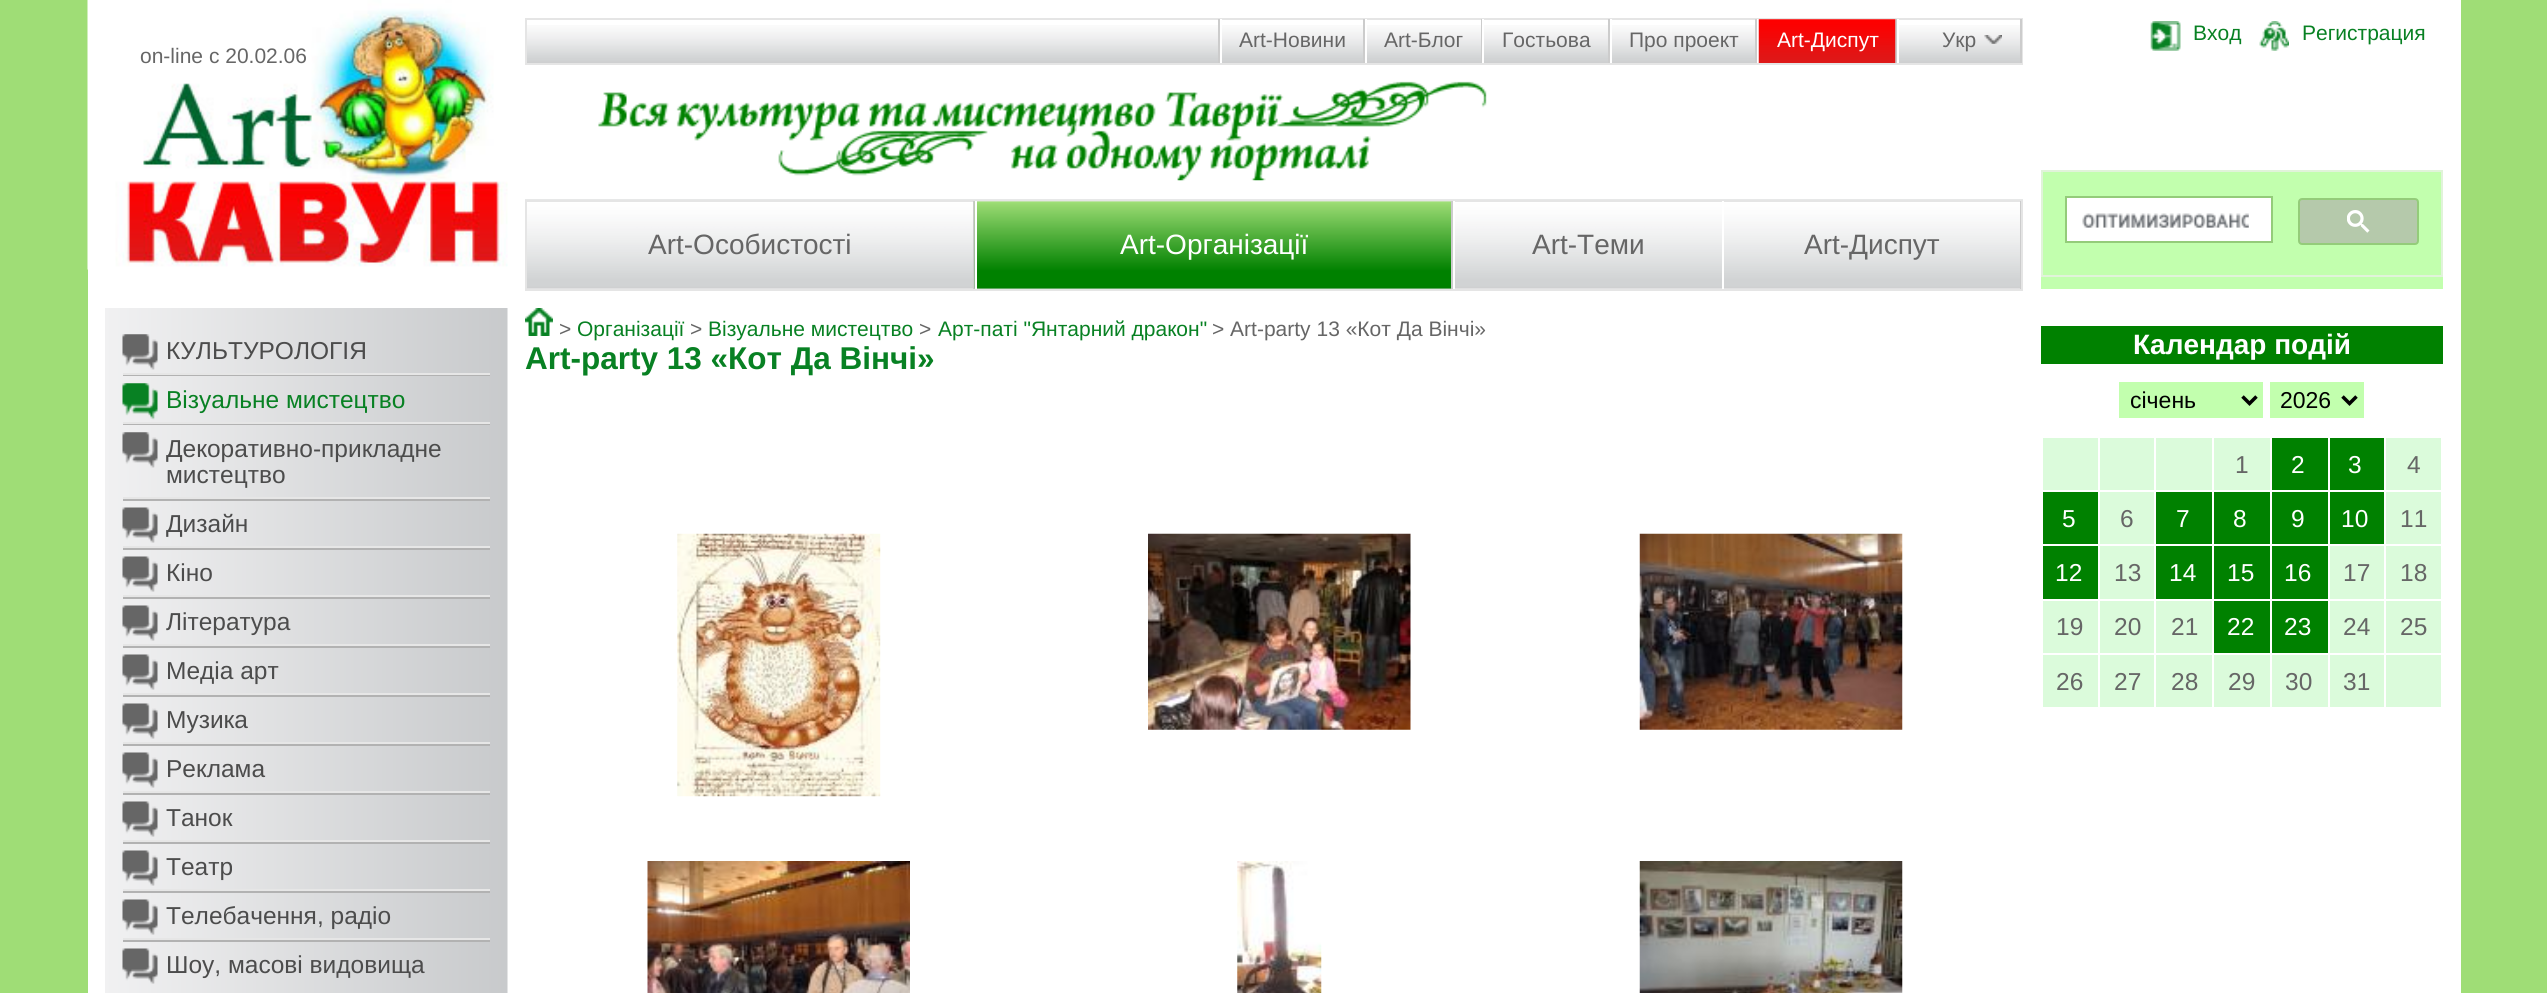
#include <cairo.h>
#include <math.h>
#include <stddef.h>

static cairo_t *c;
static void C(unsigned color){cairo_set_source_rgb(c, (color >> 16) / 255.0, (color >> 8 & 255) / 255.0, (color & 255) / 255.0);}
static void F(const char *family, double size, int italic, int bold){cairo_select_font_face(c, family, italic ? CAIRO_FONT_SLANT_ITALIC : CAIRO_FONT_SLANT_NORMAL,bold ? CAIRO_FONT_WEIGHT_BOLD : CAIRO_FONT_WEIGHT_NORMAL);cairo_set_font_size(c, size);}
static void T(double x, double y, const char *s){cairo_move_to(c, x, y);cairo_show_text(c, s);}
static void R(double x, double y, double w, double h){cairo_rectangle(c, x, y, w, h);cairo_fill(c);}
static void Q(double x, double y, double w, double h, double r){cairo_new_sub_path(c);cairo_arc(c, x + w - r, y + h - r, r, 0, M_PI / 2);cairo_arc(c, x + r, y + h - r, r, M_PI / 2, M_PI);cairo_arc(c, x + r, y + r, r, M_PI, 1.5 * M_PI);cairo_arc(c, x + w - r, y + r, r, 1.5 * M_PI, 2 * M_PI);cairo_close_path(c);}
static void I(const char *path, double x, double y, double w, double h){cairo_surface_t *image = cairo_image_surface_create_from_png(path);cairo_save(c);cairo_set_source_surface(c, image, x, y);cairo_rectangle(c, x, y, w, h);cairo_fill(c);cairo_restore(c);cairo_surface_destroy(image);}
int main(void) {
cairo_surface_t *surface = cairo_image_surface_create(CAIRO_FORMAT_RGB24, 2547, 993);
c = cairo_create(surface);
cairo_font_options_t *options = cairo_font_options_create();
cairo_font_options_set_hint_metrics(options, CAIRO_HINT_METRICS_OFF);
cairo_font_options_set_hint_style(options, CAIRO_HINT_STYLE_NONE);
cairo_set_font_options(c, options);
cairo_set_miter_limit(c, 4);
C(0x9fdd76);
cairo_paint(c);
C(0xffffff);
R(88,0,2373,993);
I("1.png",87,0,421,270);
F("Liberation Sans",21,0,0);
C(0x666666);
T(140,63,"on-line с 20.02.06");
I("2.png",598,81,889,100);
I("3.png",527,25,1493,38);
cairo_rectangle(c,526,19,1496,45);
C(0xe5e5e5);
cairo_stroke(c);
C(0xcccccc);
cairo_new_path(c);
cairo_move_to(c,1218,19);
cairo_line_to(c,1218,63);
cairo_line_to(c,1220,63);
cairo_line_to(c,1220,19);
cairo_line_to(c,1363,19);
cairo_close_path(c);
cairo_fill(c);
R(1363,19,2,44);
C(0xffffff);
R(1220,19,2,44);
C(0x666666);
T(1239,47,"Art-Новини");
C(0xcccccc);
R(1481,19,1,44);
C(0xffffff);
R(1365,19,2,44);
C(0x666666);
T(1384,47,"Art-Блог");
C(0xcccccc);
R(1608,19,2,44);
C(0xffffff);
R(1482,19,2,44);
C(0x666666);
T(1502,47,"Гостьова");
C(0xcccccc);
R(1755,19,2,44);
C(0xffffff);
R(1610,19,2,44);
C(0x666666);
T(1629,47,"Про проект");
C(0xcccccc);
R(1895,19,2,44);
C(0xffffff);
R(1757,19,2,44);
I("4.png",1758,19,138,44);
T(1777,47,"Art-Диспут");
C(0xcccccc);
R(2020,19,2,44);
C(0xffffff);
R(1897,19,2,44);
C(0x666666);
T(1942,47,"Укр");
I("5.png",1984,35,18,9);
I("6.png",525,199,1498,90);
cairo_rectangle(c,526,201,1496,89);
C(0xe5e5e5);
cairo_stroke(c);
C(0xcccccc);
R(973,201,2,88);
F("Liberation Sans",28,0,0);
C(0x666666);
T(648,254,"Art-Особистості");
I("7.png",974,201,477,88);
C(0xcccccc);
R(1451,201,2,88);
C(0xffffff);
R(975,201,2,88);
T(1120,254,"Art-Організації");
R(1453,201,2,88);
C(0x666666);
T(1532,254,"Art-Теми");
C(0xcccccc);
R(2020,201,1,88);
C(0xffffff);
R(1722,201,2,88);
C(0x666666);
T(1804,254,"Art-Диспут");
I("8.png",2150,21,31,30);
F("Liberation Sans",21,0,0);
C(0x088123);
T(2193,40,"Вход");
I("9.png",2259,21,30,30);
T(2302,40,"Регистрация");
C(0xc2ffae);
R(2041,172,402,117);
cairo_rectangle(c,2042,171,400,105);
C(0xe1f3da);
cairo_stroke(c);
C(0xffffff);
cairo_rectangle(c,2066,197,206,45);
cairo_fill_preserve(c);
C(0x94cc7a);
cairo_stroke(c);
I("10.png",2082,213,167,15);
C(0xb5c9ab);
Q(2299,199,119,45,3);
cairo_fill_preserve(c);
C(0x94cc7a);
cairo_stroke(c);
I("11.png",2347,210,23,23);
I("12.png",105,308,403,685);
C(0xb2b2b2);
R(123,375,367,1);
I("13.png",122,334,36,36);
C(0xe6e6e6);
R(123,373,367,2);
F("Liberation Sans",24.5,0,0);
C(0x4c4c4c);
T(166,359,"КУЛЬТУРОЛОГІЯ");
C(0xb2b2b2);
R(123,424,367,1);
I("14.png",122,383,36,37);
C(0xe6e6e6);
R(123,422,367,2);
C(0x088123);
T(166,408,"Візуальне мистецтво");
C(0xb2b2b2);
R(123,499,367,2);
I("13.png",122,432,36,36);
C(0xe6e6e6);
R(123,497,367,2);
C(0x4c4c4c);
T(166,457,"Декоративно-прикладне");
T(166,483,"мистецтво");
C(0xb2b2b2);
R(123,548,367,2);
I("15.png",122,507,36,36);
C(0xe6e6e6);
R(123,546,367,2);
C(0x4c4c4c);
T(166,532,"Дизайн");
C(0xb2b2b2);
R(123,597,367,2);
I("15.png",122,556,36,36);
C(0xe6e6e6);
R(123,595,367,2);
C(0x4c4c4c);
T(166,581,"Кіно");
C(0xb2b2b2);
R(123,646,367,2);
I("15.png",122,605,36,36);
C(0xe6e6e6);
R(123,644,367,2);
C(0x4c4c4c);
T(166,630,"Література");
C(0xb2b2b2);
R(123,695,367,2);
I("15.png",122,654,36,36);
C(0xe6e6e6);
R(123,693,367,2);
C(0x4c4c4c);
T(166,679,"Медіа арт");
C(0xb2b2b2);
R(123,744,367,2);
I("15.png",122,703,36,36);
C(0xe6e6e6);
R(123,742,367,2);
C(0x4c4c4c);
T(166,728,"Музика");
C(0xb2b2b2);
R(123,793,367,2);
I("15.png",122,752,36,36);
C(0xe6e6e6);
R(123,791,367,2);
C(0x4c4c4c);
T(166,777,"Реклама");
C(0xb2b2b2);
R(123,842,367,2);
I("15.png",122,801,36,36);
C(0xe6e6e6);
R(123,840,367,2);
C(0x4c4c4c);
T(166,826,"Танок");
C(0xb2b2b2);
R(123,891,367,2);
I("15.png",122,850,36,36);
C(0xe6e6e6);
R(123,889,367,2);
C(0x4c4c4c);
T(166,875,"Театр");
C(0xb2b2b2);
R(123,940,367,2);
I("15.png",122,899,36,36);
C(0xe6e6e6);
R(123,938,367,2);
C(0x4c4c4c);
T(166,924,"Телебачення, радіо");
I("15.png",122,948,36,36);
T(166,973,"Шоу, масові видовища");
I("16.png",525,308,28,28);
F("Liberation Sans",21,0,0);
C(0x666666);
T(559,336,">");
C(0x088123);
T(577,336,"Організації");
C(0x666666);
T(690,336,">");
C(0x088123);
T(708,336,"Візуальне мистецтво");
C(0x666666);
T(919,336,">");
C(0x088123);
T(938,336,"Арт-паті \"Янтарний дракон\"");
C(0x666666);
T(1212,336,"> Art-party 13 «Кот Да Вінчі»");
F("Liberation Sans",31.5,0,1);
C(0x088123);
T(525,369,"Art-party 13 «Кот Да Вінчі»");
I("17.png",677,533,204,264);
I("18.png",1148,533,263,197);
I("19.png",1639,533,264,197);
I("20.png",647,861,263,132);
I("21.png",1237,861,85,132);
I("22.png",1639,861,264,132);
C(0x008100);
R(2041,326,402,38);
F("Liberation Sans",28,0,1);
C(0xffffff);
T(2133,354,"Календар подій");
C(0xc2ffae);
R(2119,382,144,36);
cairo_new_path(c);
cairo_move_to(c,2242.5,396.5);
cairo_line_to(c,2249.5,403.5);
cairo_line_to(c,2256.5,396.5);
C(0x000000);
cairo_set_line_width(c,3.5);
cairo_stroke(c);
F("Liberation Sans",23,0,0);
T(2130,408,"січень");
C(0xc2ffae);
R(2270,382,94,36);
cairo_new_path(c);
cairo_move_to(c,2342.5,396.5);
cairo_line_to(c,2349.5,403.5);
cairo_line_to(c,2356.5,396.5);
C(0x000000);
cairo_stroke(c);
T(2280,408,"2026");
C(0xdbfbdb);
R(2043,438,55,52);
R(2100,438,54,52);
R(2156,438,56,52);
R(2214,438,56,52);
F("Liberation Sans",24.5,0,0);
C(0x666666);
T(2235,473,"1");
C(0x008100);
R(2272,438,56,52);
C(0xffffff);
T(2291,473,"2");
C(0x008100);
R(2330,438,54,52);
C(0xffffff);
T(2348,473,"3");
C(0xdbfbdb);
R(2386,438,55,52);
C(0x666666);
T(2407,473,"4");
C(0x008100);
R(2043,492,55,52);
C(0xffffff);
T(2062,527,"5");
C(0xdbfbdb);
R(2100,492,54,52);
C(0x666666);
T(2120,527,"6");
C(0x008100);
R(2156,492,56,52);
C(0xffffff);
T(2176,527,"7");
C(0x008100);
R(2214,492,56,52);
C(0xffffff);
T(2233,527,"8");
C(0x008100);
R(2272,492,56,52);
C(0xffffff);
T(2291,527,"9");
C(0x008100);
R(2330,492,54,52);
C(0xffffff);
T(2341,527,"10");
C(0xdbfbdb);
R(2386,492,55,52);
C(0x666666);
T(2400,527,"11");
C(0x008100);
R(2043,546,55,53);
C(0xffffff);
T(2055,581,"12");
C(0xdbfbdb);
R(2100,546,54,53);
C(0x666666);
T(2114,581,"13");
C(0x008100);
R(2156,546,56,53);
C(0xffffff);
T(2169,581,"14");
C(0x008100);
R(2214,546,56,53);
C(0xffffff);
T(2227,581,"15");
C(0x008100);
R(2272,546,56,53);
C(0xffffff);
T(2284,581,"16");
C(0xdbfbdb);
R(2330,546,54,53);
C(0x666666);
T(2343,581,"17");
C(0xdbfbdb);
R(2386,546,55,53);
C(0x666666);
T(2400,581,"18");
C(0xdbfbdb);
R(2043,601,55,52);
C(0x666666);
T(2056,635,"19");
C(0xdbfbdb);
R(2100,601,54,52);
C(0x666666);
T(2114,635,"20");
C(0xdbfbdb);
R(2156,601,56,52);
C(0x666666);
T(2171,635,"21");
C(0x008100);
R(2214,601,56,52);
C(0xffffff);
T(2227,635,"22");
C(0x008100);
R(2272,601,56,52);
C(0xffffff);
T(2284,635,"23");
C(0xdbfbdb);
R(2330,601,54,52);
C(0x666666);
T(2343,635,"24");
C(0xdbfbdb);
R(2386,601,55,52);
C(0x666666);
T(2400,635,"25");
C(0xdbfbdb);
R(2043,655,55,52);
C(0x666666);
T(2056,690,"26");
C(0xdbfbdb);
R(2100,655,54,52);
C(0x666666);
T(2114,690,"27");
C(0xdbfbdb);
R(2156,655,56,52);
C(0x666666);
T(2171,690,"28");
C(0xdbfbdb);
R(2214,655,56,52);
C(0x666666);
T(2228,690,"29");
C(0xdbfbdb);
R(2272,655,56,52);
C(0x666666);
T(2285,690,"30");
C(0xdbfbdb);
R(2330,655,54,52);
C(0x666666);
T(2343,690,"31");
C(0xdbfbdb);
R(2386,655,55,52);
cairo_surface_write_to_png(surface, "o.png");
cairo_font_options_destroy(options);
cairo_destroy(c);
cairo_surface_destroy(surface);
return 0;
}
